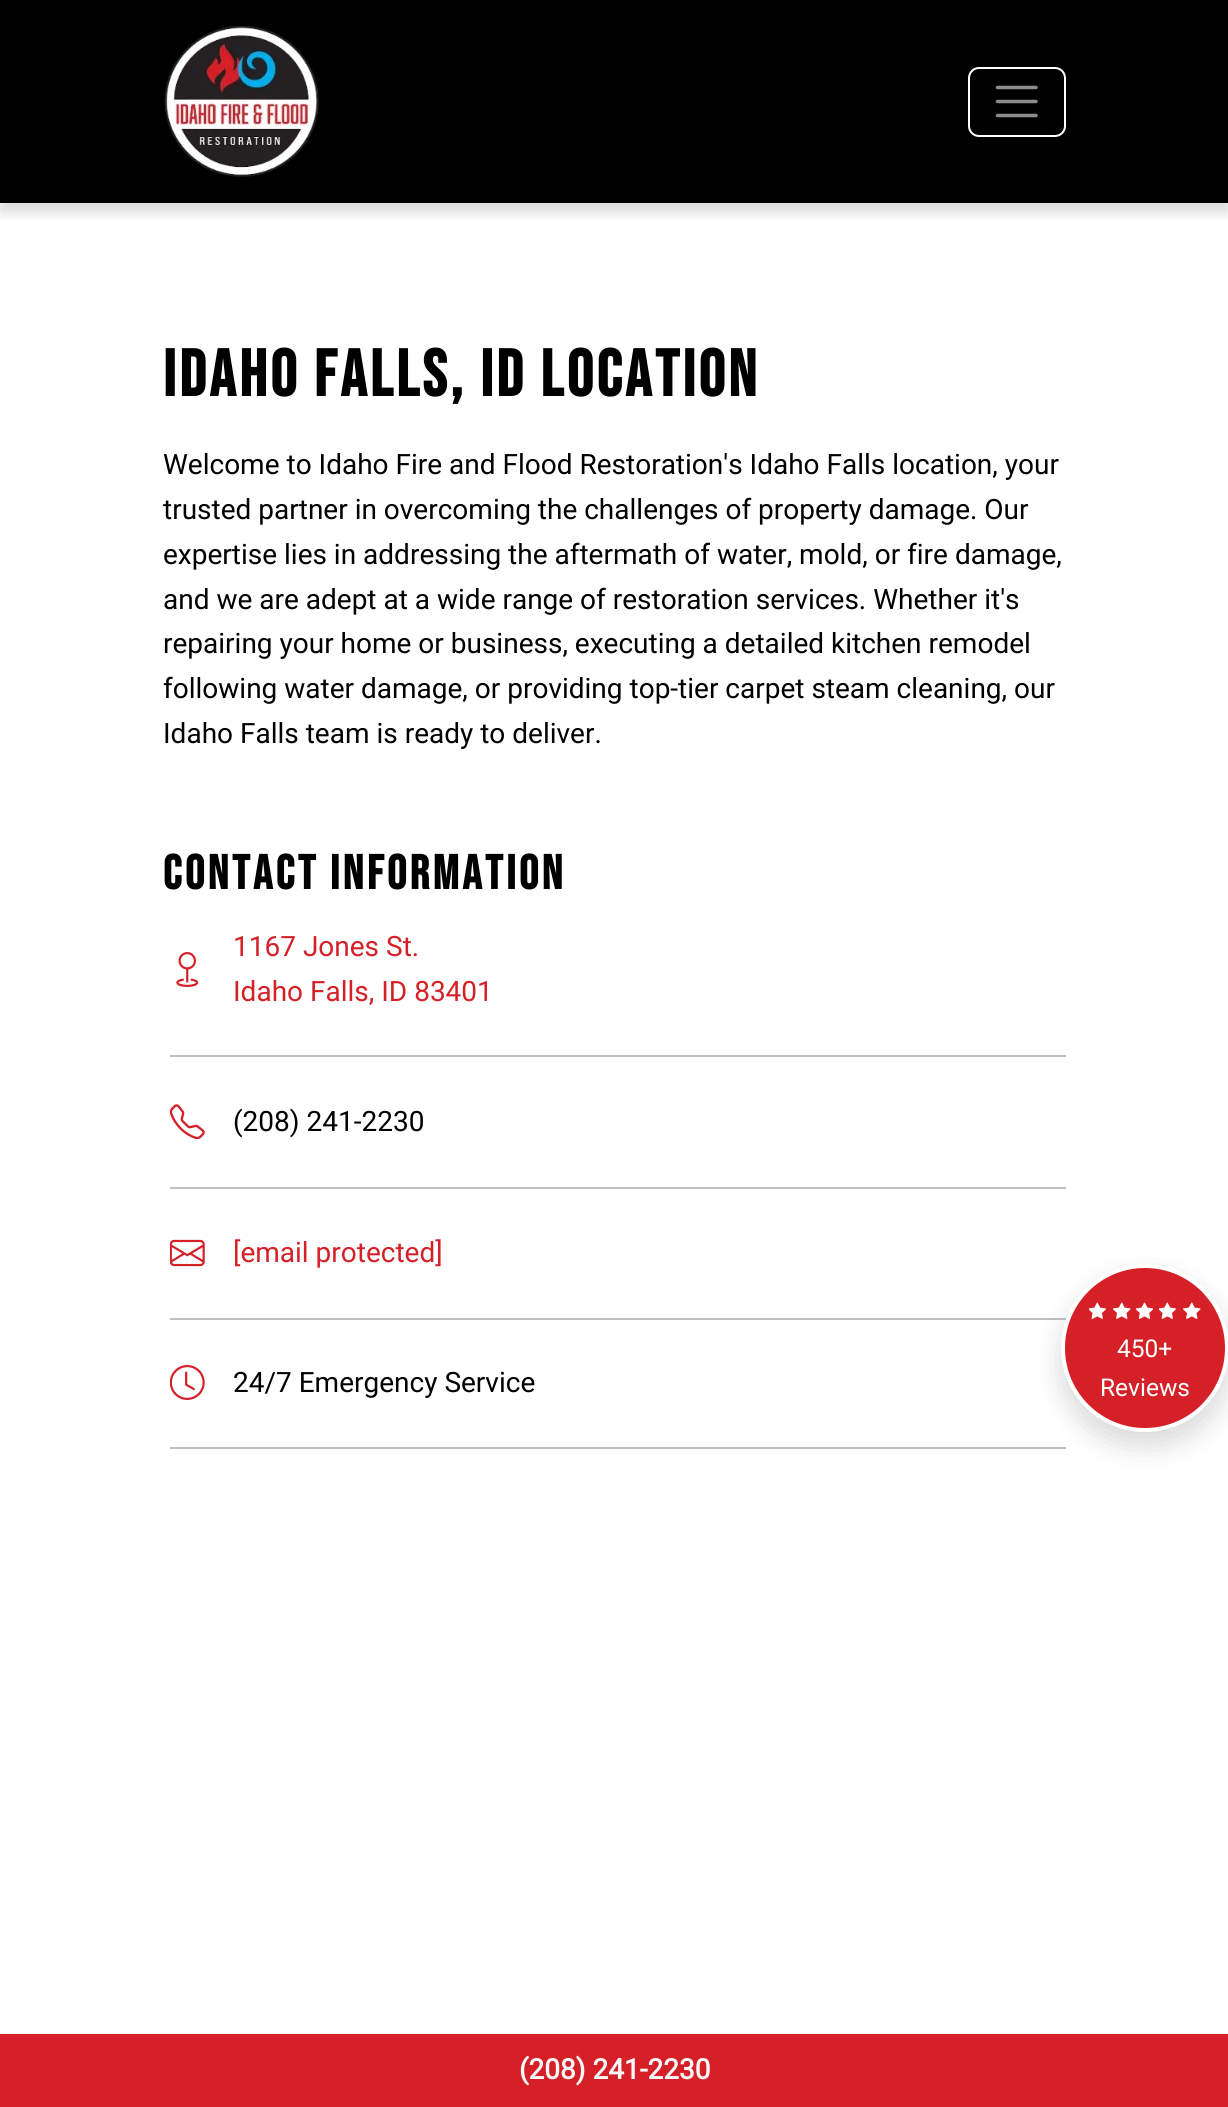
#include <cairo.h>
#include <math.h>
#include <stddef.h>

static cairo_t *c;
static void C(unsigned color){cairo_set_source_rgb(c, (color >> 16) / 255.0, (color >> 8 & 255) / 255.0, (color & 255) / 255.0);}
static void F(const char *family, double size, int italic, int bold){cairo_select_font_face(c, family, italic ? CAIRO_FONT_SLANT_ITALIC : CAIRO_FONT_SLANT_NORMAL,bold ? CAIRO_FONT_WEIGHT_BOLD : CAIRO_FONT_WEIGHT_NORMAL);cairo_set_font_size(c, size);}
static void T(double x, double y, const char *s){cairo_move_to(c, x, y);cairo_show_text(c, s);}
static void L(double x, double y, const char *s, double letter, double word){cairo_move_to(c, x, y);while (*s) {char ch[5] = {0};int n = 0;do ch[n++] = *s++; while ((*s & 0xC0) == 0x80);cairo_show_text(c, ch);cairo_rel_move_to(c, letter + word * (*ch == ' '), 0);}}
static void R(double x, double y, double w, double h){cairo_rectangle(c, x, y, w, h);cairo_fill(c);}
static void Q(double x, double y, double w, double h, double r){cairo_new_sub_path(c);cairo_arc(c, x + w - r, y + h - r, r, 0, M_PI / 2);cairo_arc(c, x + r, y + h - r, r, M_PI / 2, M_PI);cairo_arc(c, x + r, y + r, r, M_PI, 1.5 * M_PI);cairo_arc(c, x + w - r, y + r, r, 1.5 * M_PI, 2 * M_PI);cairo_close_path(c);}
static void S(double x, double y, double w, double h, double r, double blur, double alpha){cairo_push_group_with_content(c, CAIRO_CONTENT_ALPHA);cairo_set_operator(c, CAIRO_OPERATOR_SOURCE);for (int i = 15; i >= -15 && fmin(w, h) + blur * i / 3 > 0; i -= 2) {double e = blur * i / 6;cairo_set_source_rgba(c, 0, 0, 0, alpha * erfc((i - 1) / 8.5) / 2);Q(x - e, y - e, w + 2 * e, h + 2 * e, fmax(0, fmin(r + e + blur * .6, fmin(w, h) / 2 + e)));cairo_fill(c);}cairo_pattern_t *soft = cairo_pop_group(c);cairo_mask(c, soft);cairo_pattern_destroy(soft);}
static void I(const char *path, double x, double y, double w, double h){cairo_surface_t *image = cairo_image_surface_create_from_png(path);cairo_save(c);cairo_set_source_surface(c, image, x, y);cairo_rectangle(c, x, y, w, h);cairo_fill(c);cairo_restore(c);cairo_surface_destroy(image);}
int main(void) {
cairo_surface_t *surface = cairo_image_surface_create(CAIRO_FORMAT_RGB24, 1228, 2107);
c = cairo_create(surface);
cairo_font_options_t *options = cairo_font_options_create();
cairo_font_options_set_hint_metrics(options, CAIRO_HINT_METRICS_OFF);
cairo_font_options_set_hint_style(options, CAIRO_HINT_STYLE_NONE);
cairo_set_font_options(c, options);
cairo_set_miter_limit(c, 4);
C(0xffffff);
cairo_paint(c);
F("Bebas Neue",65.75,0,1);
C(0x000000);
L(163,396,"Idaho Falls, ID Location",3.5,0);
F("Roboto",28,0,0);
T(163,474,"Welcome to Idaho Fire and Flood Restoration's Idaho Falls location, your");
T(163,519,"trusted partner in overcoming the challenges of property damage. Our");
T(163,564,"expertise lies in addressing the aftermath of water, mold, or fire damage,");
T(163,609,"and we are adept at a wide range of restoration services. Whether it's");
T(163,653,"repairing your home or business, executing a detailed kitchen remodel");
T(163,698,"following water damage, or providing top-tier carpet steam cleaning, our");
T(163,743,"Idaho Falls team is ready to deliver.");
F("Bebas Neue",48.25,0,1);
L(163,889,"Contact Information",3.5,0);
I("1.png",176,952,23,35);
F("Roboto",28,0,0);
C(0xd62027);
T(233,956,"1167 Jones St.");
T(233,1001,"Idaho Falls, ID 83401");
C(0xbfbfbf);
R(170,1055,896,2);
I("2.png",170,1104,35,35);
C(0x000000);
T(233,1131,"(208) 241-2230");
C(0xbfbfbf);
R(170,1187,896,2);
I("3.png",170,1239,35,28);
C(0xd62027);
T(233,1262,"[email protected]");
C(0xbfbfbf);
R(170,1318,896,2);
I("4.png",170,1365,35,35);
C(0x000000);
T(233,1392,"24/7 Emergency Service");
C(0xbfbfbf);
R(170,1447,896,2);
C(0x000000);
S(1061,1278,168,168,84,14,.15);
C(0xd62027);
cairo_arc(c,1145,1348,82,0,2 * M_PI);
cairo_fill_preserve(c);
C(0xffffff);
cairo_set_line_width(c,4);
cairo_stroke(c);
I("5.png",1089,1302,17,17);
I("6.png",1113,1302,18,17);
I("7.png",1136,1302,17,17);
I("5.png",1159,1302,17,17);
I("6.png",1183,1302,18,17);
F("Roboto",24.5,0,0);
T(1117,1357,"450+");
T(1100,1396,"Reviews");
C(0x000000);
R(0,0,1228,203);
cairo_save(c);
cairo_rectangle(c,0,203,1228,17);
cairo_clip(c);
C(0x000000);
S(0,9,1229,203,0,7,.15);
cairo_restore(c);
I("8.png",164,26,155,151);
Q(969,68,96,68,10);
C(0xffffff);
cairo_set_line_width(c,2);
cairo_stroke(c);
cairo_new_path(c);
cairo_move_to(c,997.5,87.5);
cairo_line_to(c,1036,87.5);
cairo_move_to(c,997.5,101.5);
cairo_line_to(c,1036,101.5);
cairo_move_to(c,997.5,115.5);
cairo_line_to(c,1036,115.5);
C(0x8c8c8c);
cairo_set_line_width(c,3.5);
cairo_set_line_cap(c,CAIRO_LINE_CAP_ROUND);
cairo_stroke(c);
C(0xd62027);
R(0,2034,1228,73);
F("Roboto",28,0,1);
C(0xf8f9fa);
T(519,2079,"(208) 241-2230");
cairo_surface_write_to_png(surface, "o.png");
cairo_font_options_destroy(options);
cairo_destroy(c);
cairo_surface_destroy(surface);
return 0;
}
